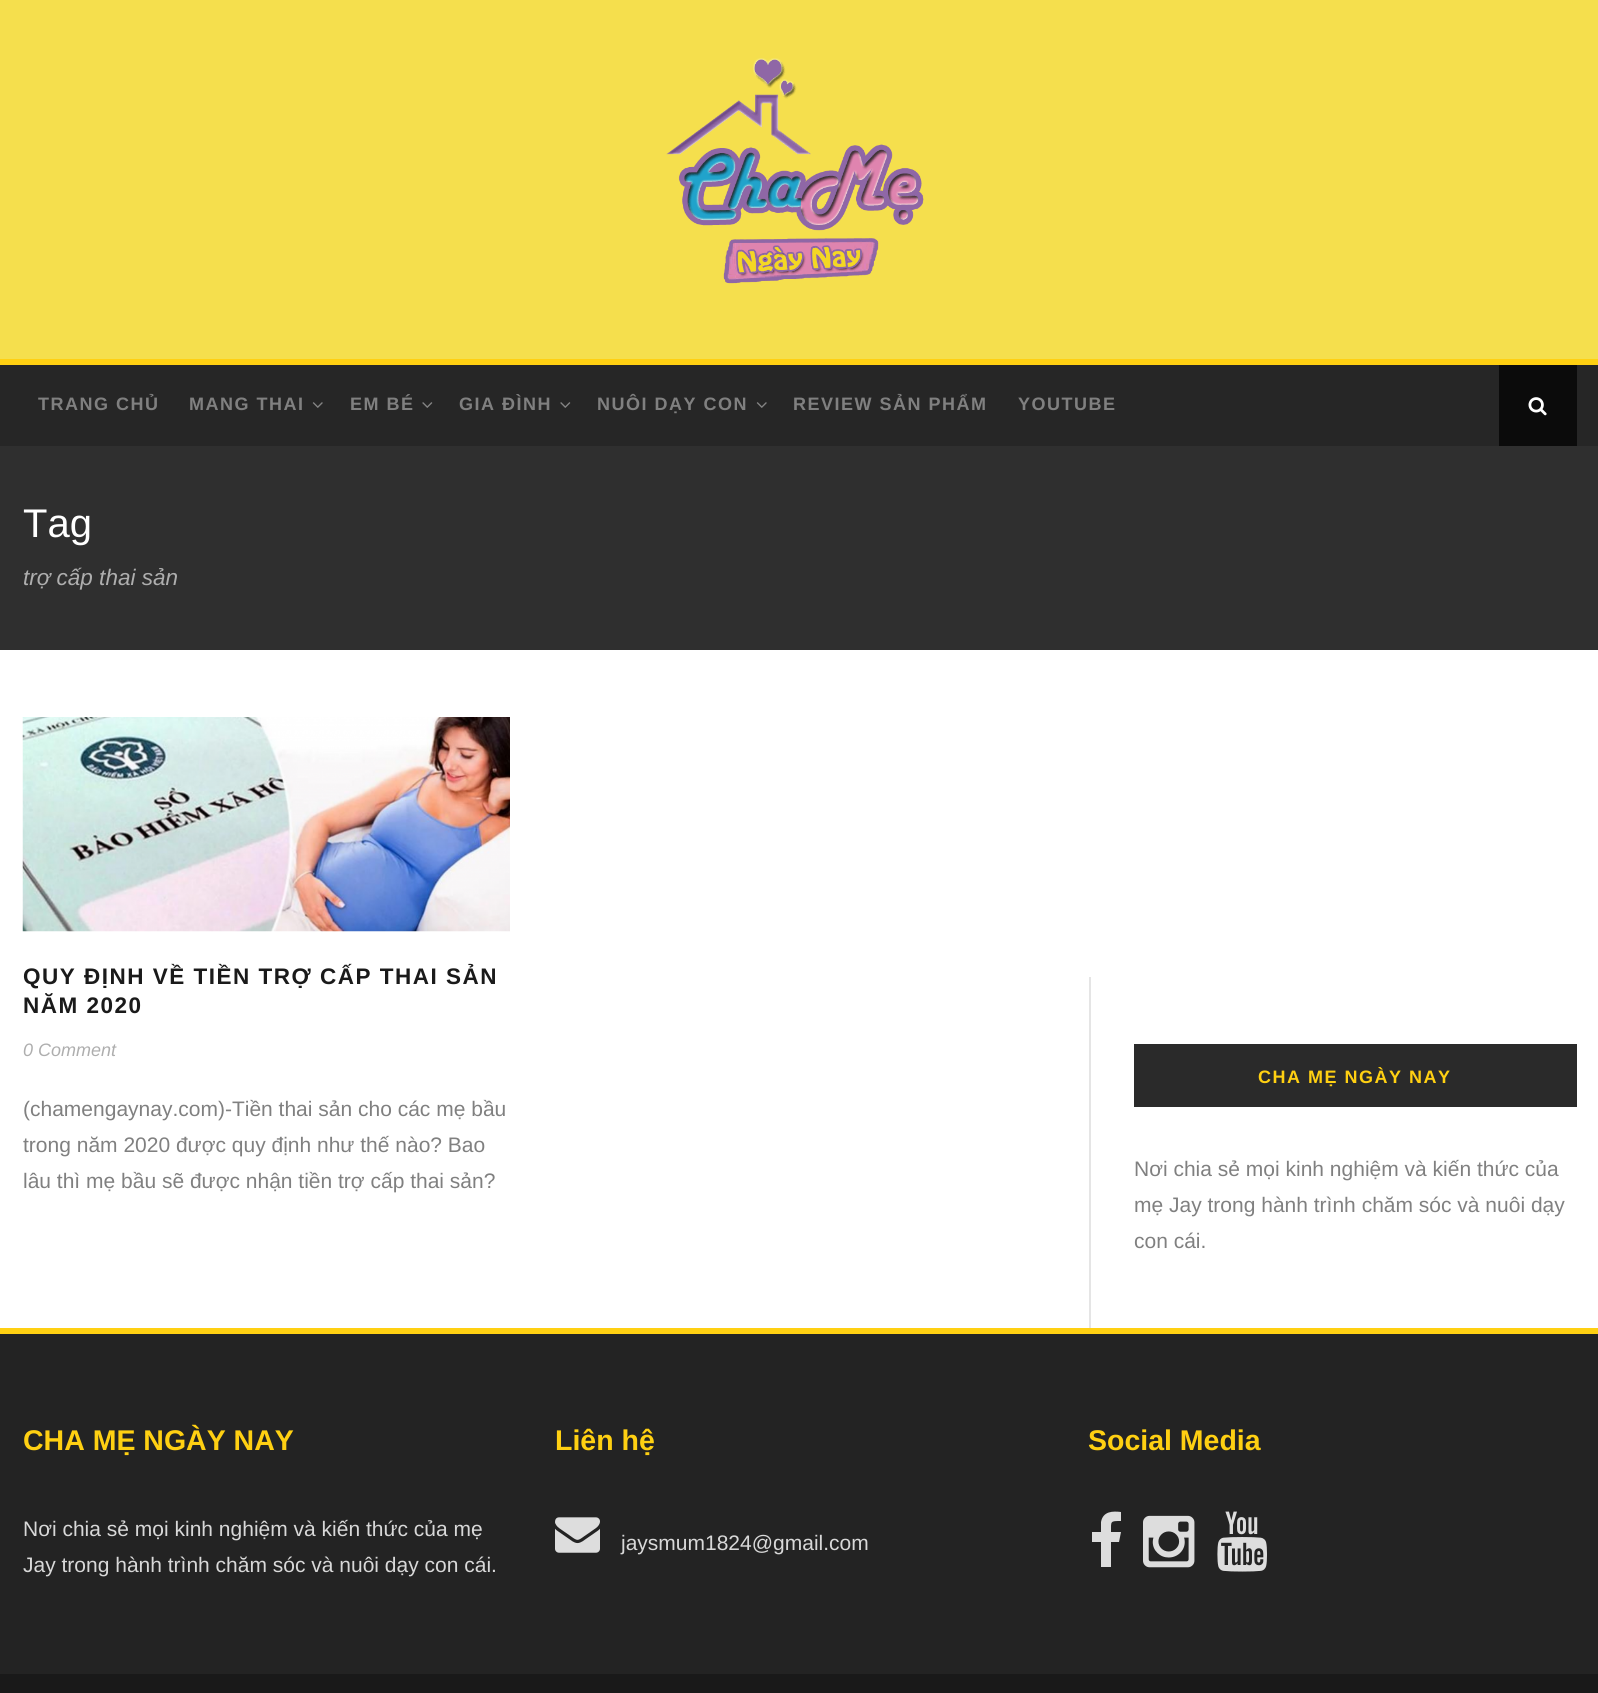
#include <cairo.h>
#include <math.h>
#include <stddef.h>

static cairo_t *c;
static void C(unsigned color){cairo_set_source_rgb(c, (color >> 16) / 255.0, (color >> 8 & 255) / 255.0, (color & 255) / 255.0);}
static void F(const char *family, double size, int italic, int bold){cairo_select_font_face(c, family, italic ? CAIRO_FONT_SLANT_ITALIC : CAIRO_FONT_SLANT_NORMAL,bold ? CAIRO_FONT_WEIGHT_BOLD : CAIRO_FONT_WEIGHT_NORMAL);cairo_set_font_size(c, size);}
static void T(double x, double y, const char *s){cairo_move_to(c, x, y);cairo_show_text(c, s);}
static void L(double x, double y, const char *s, double letter, double word){cairo_move_to(c, x, y);while (*s) {char ch[5] = {0};int n = 0;do ch[n++] = *s++; while ((*s & 0xC0) == 0x80);cairo_show_text(c, ch);cairo_rel_move_to(c, letter + word * (*ch == ' '), 0);}}
static void R(double x, double y, double w, double h){cairo_rectangle(c, x, y, w, h);cairo_fill(c);}
static void I(const char *path, double x, double y, double w, double h){cairo_surface_t *image = cairo_image_surface_create_from_png(path);cairo_save(c);cairo_set_source_surface(c, image, x, y);cairo_rectangle(c, x, y, w, h);cairo_fill(c);cairo_restore(c);cairo_surface_destroy(image);}
int main(void) {
cairo_surface_t *surface = cairo_image_surface_create(CAIRO_FORMAT_RGB24, 1598, 1693);
c = cairo_create(surface);
cairo_font_options_t *options = cairo_font_options_create();
cairo_font_options_set_hint_metrics(options, CAIRO_HINT_METRICS_OFF);
cairo_font_options_set_hint_style(options, CAIRO_HINT_STYLE_NONE);
cairo_set_font_options(c, options);
cairo_set_miter_limit(c, 4);
C(0xffffff);
cairo_paint(c);
C(0xf5df4d);
R(0,0,1598,359);
I("1.png",666,58,258,226);
C(0x262626);
R(0,365,1598,81);
C(0xffd012);
R(0,359,1598,6);
F("Liberation Sans",18,0,1);
C(0x808080);
L(38,410,"TRANG CHỦ",1.5,0);
L(189,410,"MANG THAI",1.5,0);
I("2.png",312,402,11,6);
L(350,410,"EM BÉ",1.5,0);
I("3.png",422,402,11,6);
L(459,410,"GIA ĐÌNH",1.5,0);
I("3.png",560,402,11,6);
L(597,410,"NUÔI DẠY CON",1.5,0);
I("2.png",756,402,11,6);
L(793,410,"REVIEW SẢN PHẨM",1.5,0);
L(1018,410,"YOUTUBE",1.5,0);
C(0x0b0b0b);
R(1499,365,78,81);
I("4.png",1528,397,19,19);
C(0x2f2f2f);
R(0,446,1598,204);
F("Liberation Sans",40,0,0);
C(0xffffff);
T(23,537,"Tag");
F("Liberation Sans",22.5,1,0);
C(0xaeaeae);
T(23,585,"trợ cấp thai sản");
I("5.png",22,717,488,215);
F("Liberation Sans",22.5,0,1);
C(0x1a1a1a);
L(23,984,"QUY ĐỊNH VỀ TIỀN TRỢ CẤP THAI SẢN",1.5,0);
L(23,1013,"NĂM 2020",1.5,0);
F("Liberation Sans",18,1,0);
C(0xaeaeae);
T(23,1056,"0 Comment");
F("Liberation Sans",21,0,0);
C(0x808080);
T(23,1116,"(chamengaynay.com)-Tiền thai sản cho các mẹ bầu");
T(23,1152,"trong năm 2020 được quy định như thế nào? Bao");
T(23,1188,"lâu thì mẹ bầu sẽ được nhận tiền trợ cấp thai sản?");
C(0xe5e5e5);
R(1089,977,2,351);
C(0x2a2a2a);
R(1134,1044,443,63);
F("Liberation Sans",18,0,1);
C(0xffd012);
L(1258,1083,"CHA MẸ NGÀY NAY",1.5,0);
F("Liberation Sans",21,0,0);
C(0x808080);
T(1134,1176,"Nơi chia sẻ mọi kinh nghiệm và kiến thức của");
T(1134,1212,"mẹ Jay trong hành trình chăm sóc và nuôi dạy");
T(1134,1248,"con cái.");
C(0x232323);
R(0,1334,1598,340);
C(0xffd012);
R(0,1328,1598,6);
F("Liberation Sans",28.5,0,1);
T(23,1450,"CHA MẸ NGÀY NAY");
F("Liberation Sans",21,0,0);
C(0xd8d8d8);
T(23,1536,"Nơi chia sẻ mọi kinh nghiệm và kiến thức của mẹ");
T(23,1572,"Jay trong hành trình chăm sóc và nuôi dạy con cái.");
F("Liberation Sans",28.5,0,1);
C(0xffd012);
T(555,1450,"Liên hệ");
I("6.png",555,1517,45,36);
F("Liberation Sans",21,0,0);
C(0xd8d8d8);
T(621,1550,"jaysmum1824@gmail.com");
F("Liberation Sans",28.5,0,1);
C(0xffd012);
T(1088,1450,"Social Media");
C(0xdddddd);
cairo_new_path(c);
cairo_move_to(c,1121,1512);
cairo_line_to(c,1121,1521);
cairo_curve_to(c,1110,1521,1111,1521,1111,1532);
cairo_line_to(c,1121,1532);
cairo_line_to(c,1119,1542);
cairo_line_to(c,1111,1542);
cairo_line_to(c,1111,1567);
cairo_line_to(c,1101,1567);
cairo_line_to(c,1101,1542);
cairo_line_to(c,1092,1542);
cairo_line_to(c,1092,1532);
cairo_line_to(c,1101,1532);
cairo_line_to(c,1101,1522);
cairo_curve_to(c,1103,1511,1113,1511,1121,1512);
cairo_close_path(c);
cairo_fill(c);
I("7.png",1143,1515,52,53);
I("8.png",1217,1511,50,61);
C(0x191919);
R(0,1674,1598,19);
cairo_surface_write_to_png(surface, "o.png");
cairo_font_options_destroy(options);
cairo_destroy(c);
cairo_surface_destroy(surface);
return 0;
}
